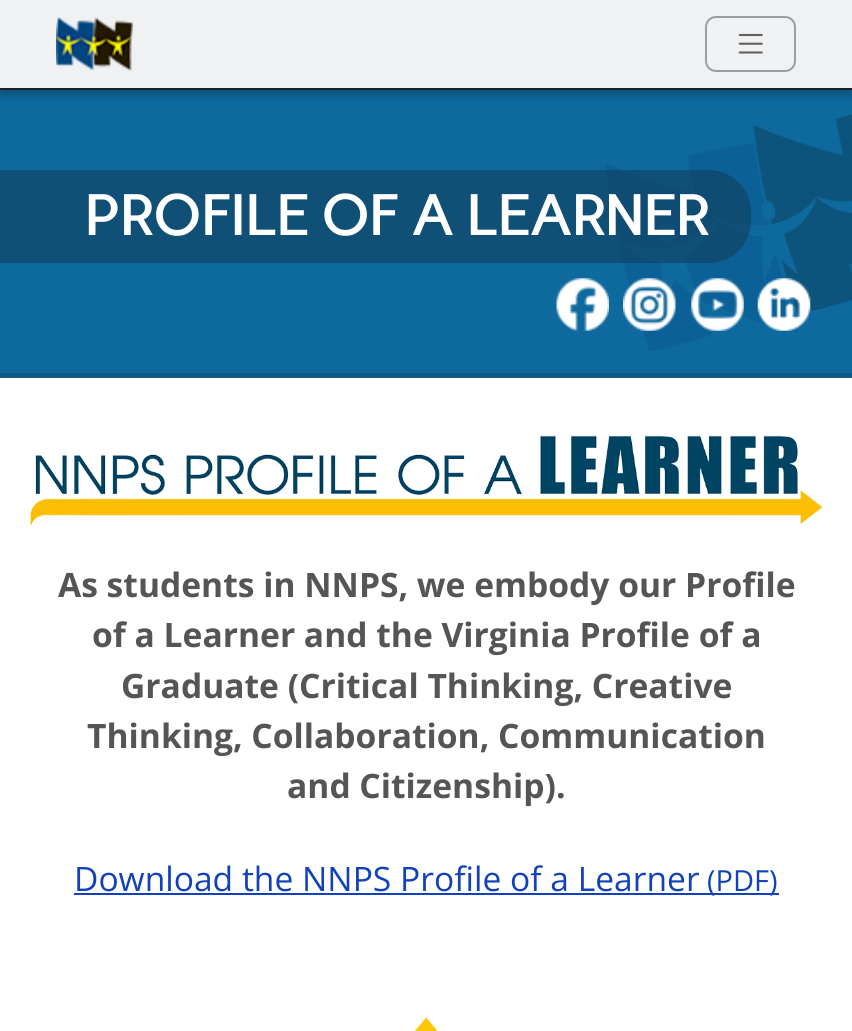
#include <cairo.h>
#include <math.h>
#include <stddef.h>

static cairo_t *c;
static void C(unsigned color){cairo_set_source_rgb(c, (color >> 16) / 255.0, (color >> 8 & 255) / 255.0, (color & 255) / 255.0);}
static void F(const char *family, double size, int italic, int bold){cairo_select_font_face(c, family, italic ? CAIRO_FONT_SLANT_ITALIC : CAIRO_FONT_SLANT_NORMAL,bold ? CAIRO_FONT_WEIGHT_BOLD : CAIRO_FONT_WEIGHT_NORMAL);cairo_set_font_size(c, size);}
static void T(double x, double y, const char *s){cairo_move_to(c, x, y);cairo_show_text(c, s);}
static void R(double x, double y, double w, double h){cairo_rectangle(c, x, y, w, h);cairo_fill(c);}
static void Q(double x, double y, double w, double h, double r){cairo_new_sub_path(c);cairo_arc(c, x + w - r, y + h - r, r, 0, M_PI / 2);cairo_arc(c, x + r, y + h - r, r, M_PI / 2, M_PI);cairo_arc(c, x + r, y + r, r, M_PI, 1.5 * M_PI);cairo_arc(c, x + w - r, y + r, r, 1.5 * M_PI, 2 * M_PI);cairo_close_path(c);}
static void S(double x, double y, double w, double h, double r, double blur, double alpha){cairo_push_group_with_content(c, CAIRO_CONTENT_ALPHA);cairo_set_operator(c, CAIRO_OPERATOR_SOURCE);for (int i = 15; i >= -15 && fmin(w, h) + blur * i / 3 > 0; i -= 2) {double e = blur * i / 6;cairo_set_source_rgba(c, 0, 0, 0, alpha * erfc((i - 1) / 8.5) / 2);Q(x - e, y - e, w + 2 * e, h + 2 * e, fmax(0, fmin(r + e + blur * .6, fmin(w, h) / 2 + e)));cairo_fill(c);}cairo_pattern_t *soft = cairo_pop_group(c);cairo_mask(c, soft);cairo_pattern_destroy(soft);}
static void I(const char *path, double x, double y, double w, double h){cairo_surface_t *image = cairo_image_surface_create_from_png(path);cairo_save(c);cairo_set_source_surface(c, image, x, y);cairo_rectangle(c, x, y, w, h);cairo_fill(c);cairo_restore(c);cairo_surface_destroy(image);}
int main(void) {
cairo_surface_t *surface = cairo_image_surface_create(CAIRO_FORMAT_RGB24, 852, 1031);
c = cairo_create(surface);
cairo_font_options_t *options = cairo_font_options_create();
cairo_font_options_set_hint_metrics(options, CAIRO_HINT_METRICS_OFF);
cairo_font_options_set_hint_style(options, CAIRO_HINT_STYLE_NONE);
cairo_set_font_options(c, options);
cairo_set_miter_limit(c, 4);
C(0xffffff);
cairo_paint(c);
C(0x0e699e);
R(0,90,852,283);
C(0x000000);
S(0,7,852,89,0,3.5,.2);
C(0xeff1f3);
R(0,0,852,88);
C(0x202020);
R(0,88,852,2);
I("1.png",56,17,77,54);
Q(706,17,89,54,10);
C(0x9b9d9e);
cairo_stroke(c);
I("2.png",738,33,25,21);
I("3.png",605,114,247,237);
C(0x0c5b89);
R(0,373,852,5);
cairo_set_source_rgba(c,0.071,0.22,0.318,0.5);
Q(-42,170,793,93,42);
cairo_fill(c);
F("Carme",56,0,1);
C(0xffffff);
T(84,235,"PROFILE OF A LEARNER");
I("4.png",556,278,53,53);
I("5.png",623,278,53,53);
I("6.png",691,278,53,53);
I("7.png",757,278,54,53);
I("8.png",30,435,793,90);
F("Open Sans",33.6,0,1);
C(0x555555);
T(58,597,"As students in NNPS, we embody our Profile");
T(92,647,"of a Learner and the Virginia Profile of a");
T(121,698,"Graduate (Critical Thinking, Creative");
T(87,748,"Thinking, Collaboration, Communication");
T(287,798,"and Citizenship).");
F("Open Sans",33.6,0,0);
C(0x1242ba);
T(74,891,"Download the NNPS Profile of a Learner");
R(74,893,705,2);
F("Open Sans",29,0,0);
T(707,891,"(PDF)");
I("9.png",414,1017,25,14);
cairo_surface_write_to_png(surface, "o.png");
cairo_font_options_destroy(options);
cairo_destroy(c);
cairo_surface_destroy(surface);
return 0;
}
